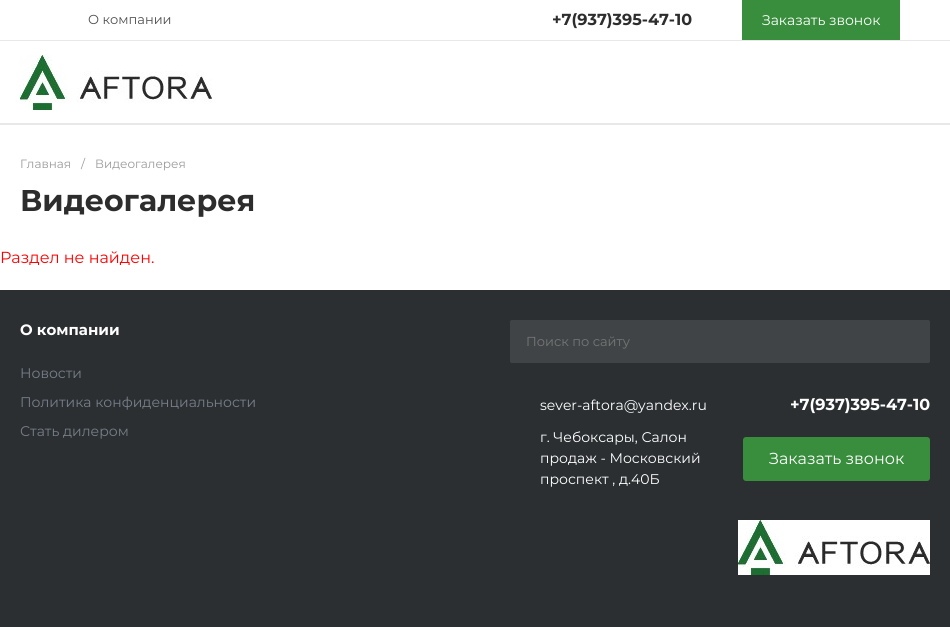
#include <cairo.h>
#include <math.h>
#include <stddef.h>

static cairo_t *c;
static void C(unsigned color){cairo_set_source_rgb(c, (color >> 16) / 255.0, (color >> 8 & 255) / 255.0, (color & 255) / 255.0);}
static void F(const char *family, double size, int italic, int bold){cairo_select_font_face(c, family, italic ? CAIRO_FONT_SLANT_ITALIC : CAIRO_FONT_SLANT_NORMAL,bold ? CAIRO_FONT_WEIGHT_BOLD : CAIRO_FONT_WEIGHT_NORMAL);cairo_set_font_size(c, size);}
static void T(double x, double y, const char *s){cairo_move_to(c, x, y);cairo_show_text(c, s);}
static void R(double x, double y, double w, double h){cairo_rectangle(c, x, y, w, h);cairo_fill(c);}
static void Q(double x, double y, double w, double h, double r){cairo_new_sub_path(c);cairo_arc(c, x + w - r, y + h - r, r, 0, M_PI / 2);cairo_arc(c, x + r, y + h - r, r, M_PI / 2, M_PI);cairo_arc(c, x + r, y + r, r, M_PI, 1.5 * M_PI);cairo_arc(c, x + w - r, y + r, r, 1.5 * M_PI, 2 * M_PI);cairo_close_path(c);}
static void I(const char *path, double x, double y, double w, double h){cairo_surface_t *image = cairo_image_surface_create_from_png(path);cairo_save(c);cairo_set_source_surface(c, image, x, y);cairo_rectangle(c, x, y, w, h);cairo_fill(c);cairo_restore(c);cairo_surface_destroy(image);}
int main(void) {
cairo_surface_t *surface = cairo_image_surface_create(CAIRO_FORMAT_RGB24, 950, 627);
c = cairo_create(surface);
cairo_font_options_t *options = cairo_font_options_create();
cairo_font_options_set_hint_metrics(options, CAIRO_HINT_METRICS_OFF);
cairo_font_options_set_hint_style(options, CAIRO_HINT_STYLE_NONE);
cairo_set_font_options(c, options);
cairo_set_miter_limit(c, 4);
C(0xffffff);
cairo_paint(c);
C(0xe8e8e8);
R(0,40,950,1);
F("Montserrat",13,0,0);
C(0x4f4f4f);
T(88,24,"О компании");
F("Montserrat",16,0,1);
C(0x2d2d2d);
T(552,25,"+7(937)395-47-10");
C(0x388e3c);
R(742,0,158,40);
F("Montserrat",14,0,0);
C(0xffffff);
T(762,25,"Заказать звонок");
C(0xe8e8e8);
R(0,123,950,2);
I("1.png",20,55,192,55);
F("Montserrat",12,0,0);
C(0x9a9a9a);
T(20,168,"Главная");
T(81,168,"/");
T(95,168,"Видеогалерея");
F("Montserrat",30,0,1);
C(0x2d2d2d);
T(20,211,"Видеогалерея");
F("Montserrat",16,0,0);
C(0xff0000);
T(0,263,"Раздел не найден.");
C(0x2b2f32);
R(0,290,950,337);
F("Montserrat",15,0,1);
C(0xffffff);
T(20,335,"О компании");
F("Montserrat",14,0,0);
C(0x777e89);
T(20,378,"Новости");
T(20,407,"Политика конфиденциальности");
T(20,436,"Стать дилером");
C(0x414447);
Q(510.5,320.5,419,42,1.5);
cairo_fill_preserve(c);
cairo_set_line_width(c,1);
cairo_stroke(c);
F("Montserrat",13,0,0);
C(0x757575);
T(526,346,"Поиск по сайту");
F("Montserrat",14,0,0);
C(0xffffff);
T(540,410,"sever-aftora@yandex.ru");
F("Montserrat",16,0,1);
T(790,410,"+7(937)395-47-10");
F("Montserrat",14,0,0);
T(540,442,"г. Чебоксары, Салон");
T(540,463,"продаж - Московский");
T(540,484,"проспект , д.40Б");
C(0x388e3c);
Q(744,438,185,42,2);
cairo_fill_preserve(c);
cairo_set_line_width(c,2);
cairo_stroke(c);
F("Montserrat",16,0,0);
C(0xffffff);
T(769,464,"Заказать звонок");
I("1.png",738,520,192,55);
cairo_surface_write_to_png(surface, "o.png");
cairo_font_options_destroy(options);
cairo_destroy(c);
cairo_surface_destroy(surface);
return 0;
}
